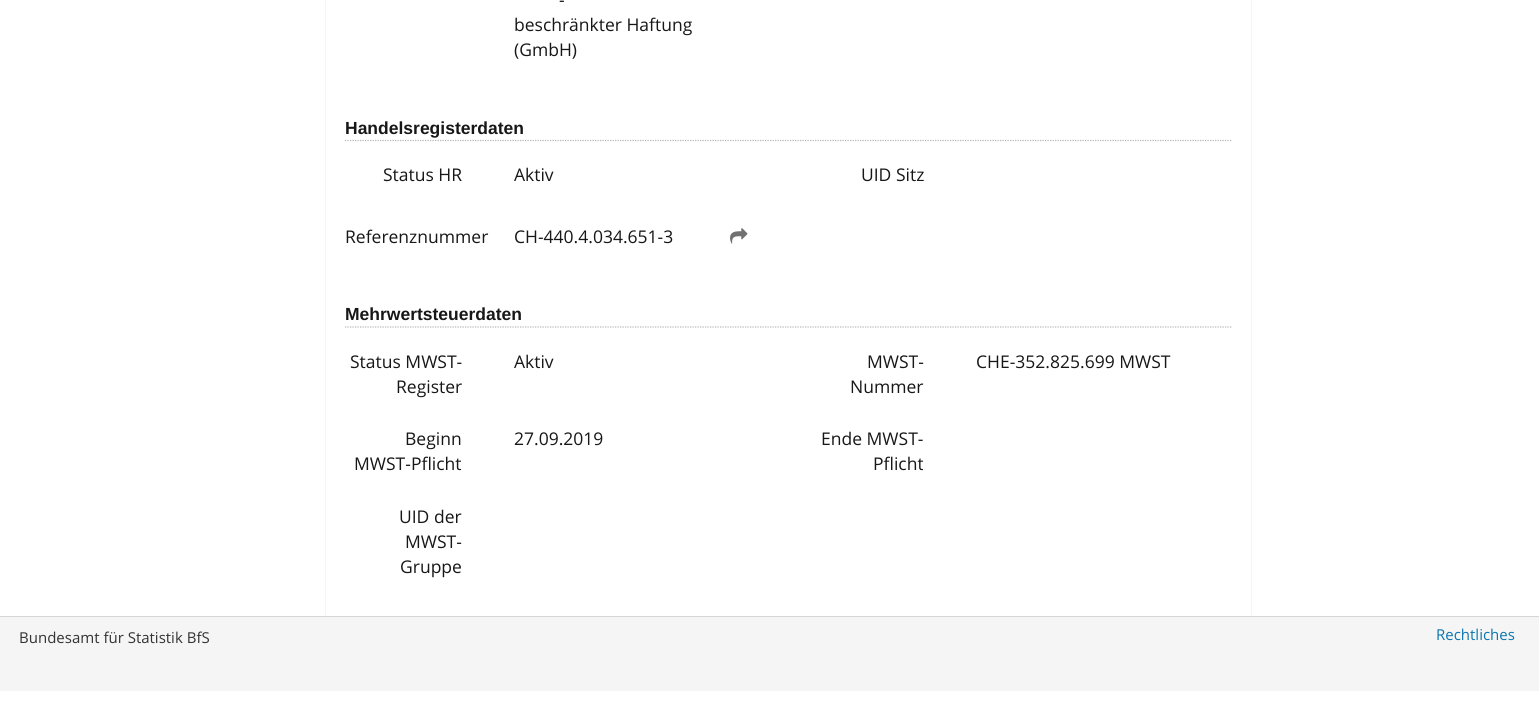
#include <cairo.h>
#include <math.h>
#include <stddef.h>

static cairo_t *c;
static void C(unsigned color){cairo_set_source_rgb(c, (color >> 16) / 255.0, (color >> 8 & 255) / 255.0, (color & 255) / 255.0);}
static void F(const char *family, double size, int italic, int bold){cairo_select_font_face(c, family, italic ? CAIRO_FONT_SLANT_ITALIC : CAIRO_FONT_SLANT_NORMAL,bold ? CAIRO_FONT_WEIGHT_BOLD : CAIRO_FONT_WEIGHT_NORMAL);cairo_set_font_size(c, size);}
static void T(double x, double y, const char *s){cairo_move_to(c, x, y);cairo_show_text(c, s);}
static void R(double x, double y, double w, double h){cairo_rectangle(c, x, y, w, h);cairo_fill(c);}
static void I(const char *path, double x, double y, double w, double h){cairo_surface_t *image = cairo_image_surface_create_from_png(path);cairo_save(c);cairo_set_source_surface(c, image, x, y);cairo_rectangle(c, x, y, w, h);cairo_fill(c);cairo_restore(c);cairo_surface_destroy(image);}
int main(void) {
cairo_surface_t *surface = cairo_image_surface_create(CAIRO_FORMAT_RGB24, 1539, 703);
c = cairo_create(surface);
cairo_font_options_t *options = cairo_font_options_create();
cairo_font_options_set_hint_metrics(options, CAIRO_HINT_METRICS_OFF);
cairo_font_options_set_hint_style(options, CAIRO_HINT_STYLE_NONE);
cairo_set_font_options(c, options);
cairo_set_miter_limit(c, 4);
C(0xffffff);
cairo_paint(c);
C(0xf5f5f5);
R(325,0,1,616);
F("Open Sans",17.5,0,0);
C(0x171717);
T(559,6,"-");
T(514,31,"beschränkter Haftung");
T(514,56,"(GmbH)");
cairo_new_path(c);
cairo_move_to(c,345,140.5);
cairo_line_to(c,1232.5,140.5);
C(0xb4b4b4);
cairo_set_line_width(c,1.2);
cairo_set_dash(c,(double[]){1.25,1.25},2,0);
cairo_stroke(c);
F("Liberation Sans",17.5,0,1);
C(0x171717);
T(345,134,"Handelsregisterdaten");
F("Open Sans",17.5,0,0);
T(383,181,"Status HR");
T(514,181,"Aktiv");
T(861,181,"UID Sitz");
T(345,243,"Referenznummer");
T(514,243,"CH-440.4.034.651-3");
I("1.png",730,228,18,16);
cairo_new_path(c);
cairo_move_to(c,345,327);
cairo_line_to(c,1232.5,327);
C(0xb4b4b4);
cairo_stroke(c);
F("Liberation Sans",17.5,0,1);
C(0x171717);
T(345,320,"Mehrwertsteuerdaten");
F("Open Sans",17.5,0,0);
T(350,368,"Status MWST-");
T(396,393,"Register");
T(514,368,"Aktiv");
T(867,368,"MWST-");
T(850,393,"Nummer");
T(976,368,"CHE-352.825.699 MWST");
T(405,445,"Beginn");
T(354,470,"MWST-Pflicht");
T(514,445,"27.09.2019");
T(821,445,"Ende MWST-");
T(873,470,"Pflicht");
T(399,523,"UID der");
T(405,548,"MWST-");
T(400,573,"Gruppe");
C(0xf5f5f5);
R(1251,0,1,616);
R(0,617,1539,74);
C(0xd5d5d5);
R(0,616,1539,1);
F("Open Sans",15,0,0);
C(0x333333);
T(19,643,"Bundesamt für Statistik BfS");
C(0x0c76ad);
T(1436,640,"Rechtliches");
cairo_surface_write_to_png(surface, "o.png");
cairo_font_options_destroy(options);
cairo_destroy(c);
cairo_surface_destroy(surface);
return 0;
}
